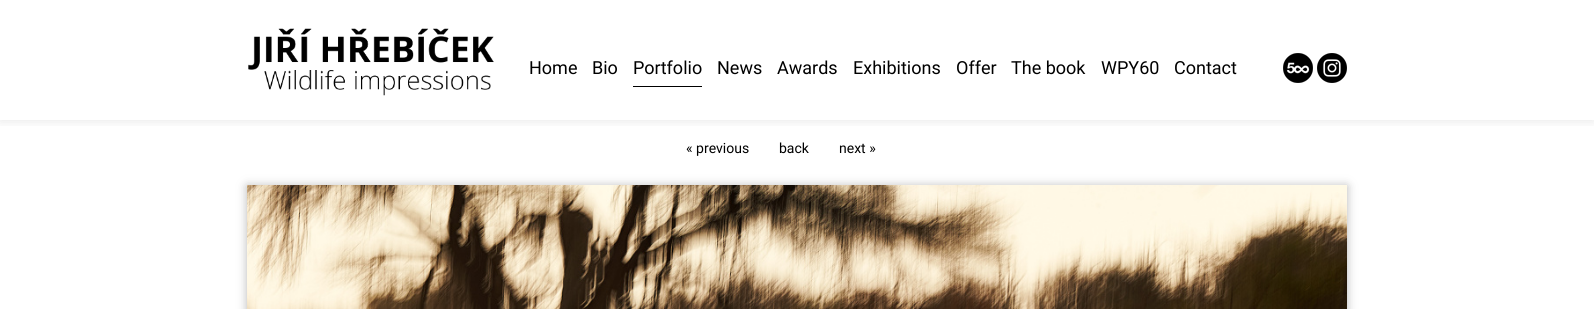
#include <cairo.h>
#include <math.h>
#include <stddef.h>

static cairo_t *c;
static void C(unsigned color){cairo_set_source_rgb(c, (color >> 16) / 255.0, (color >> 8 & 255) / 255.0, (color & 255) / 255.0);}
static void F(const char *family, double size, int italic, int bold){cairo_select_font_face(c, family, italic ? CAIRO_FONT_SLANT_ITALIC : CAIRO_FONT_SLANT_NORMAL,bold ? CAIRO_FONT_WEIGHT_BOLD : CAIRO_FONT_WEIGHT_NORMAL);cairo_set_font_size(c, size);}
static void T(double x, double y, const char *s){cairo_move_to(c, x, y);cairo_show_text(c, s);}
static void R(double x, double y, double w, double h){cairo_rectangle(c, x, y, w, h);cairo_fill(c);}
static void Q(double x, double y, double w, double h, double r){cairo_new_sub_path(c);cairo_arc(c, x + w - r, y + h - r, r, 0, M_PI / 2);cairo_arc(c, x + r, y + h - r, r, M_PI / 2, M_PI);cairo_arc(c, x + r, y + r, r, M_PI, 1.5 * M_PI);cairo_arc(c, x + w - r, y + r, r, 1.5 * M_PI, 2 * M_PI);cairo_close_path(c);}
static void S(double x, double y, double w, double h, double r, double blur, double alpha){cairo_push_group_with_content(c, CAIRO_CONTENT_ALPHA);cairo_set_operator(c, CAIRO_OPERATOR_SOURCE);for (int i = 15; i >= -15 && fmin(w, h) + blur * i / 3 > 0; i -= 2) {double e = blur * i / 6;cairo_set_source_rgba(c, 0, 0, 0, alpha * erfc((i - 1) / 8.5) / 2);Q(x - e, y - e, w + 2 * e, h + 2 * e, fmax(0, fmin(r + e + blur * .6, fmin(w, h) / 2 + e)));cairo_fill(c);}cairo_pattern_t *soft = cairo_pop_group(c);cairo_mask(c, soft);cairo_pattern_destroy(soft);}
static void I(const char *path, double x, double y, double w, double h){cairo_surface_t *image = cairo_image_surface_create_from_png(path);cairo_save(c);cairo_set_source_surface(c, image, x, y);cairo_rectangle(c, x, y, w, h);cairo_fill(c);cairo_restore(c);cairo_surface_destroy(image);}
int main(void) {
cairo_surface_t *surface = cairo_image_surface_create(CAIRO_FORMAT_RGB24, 1594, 309);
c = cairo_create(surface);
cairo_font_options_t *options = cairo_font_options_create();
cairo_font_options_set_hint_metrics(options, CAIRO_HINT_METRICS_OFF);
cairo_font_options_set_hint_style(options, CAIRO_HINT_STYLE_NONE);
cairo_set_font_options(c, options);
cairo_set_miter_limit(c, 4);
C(0xffffff);
cairo_paint(c);
cairo_save(c);
cairo_rectangle(c,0,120,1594,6);
cairo_clip(c);
C(0x323232);
S(0,2,1594,120,0,5,.1);
cairo_restore(c);
I("1.png",248,28,246,68);
F("Roboto",18,0,0);
C(0x000000);
T(529,74,"Home");
T(592,74,"Bio");
R(633,86,69,1);
T(633,74,"Portfolio");
T(717,74,"News");
T(777,74,"Awards");
T(853,74,"Exhibitions");
T(956,74,"Offer");
T(1011,74,"The book");
T(1101,74,"WPY60");
T(1174,74,"Contact");
I("2.png",1283,53,30,30);
I("3.png",1317,53,30,30);
F("Roboto",14,0,0);
T(686,153,"« previous");
T(779,153,"back");
T(839,153,"next »");
C(0xb7b7b7);
S(247,186,1100,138,0,5,1);
I("4.png",247,185,1100,124);
cairo_surface_write_to_png(surface, "o.png");
cairo_font_options_destroy(options);
cairo_destroy(c);
cairo_surface_destroy(surface);
return 0;
}
